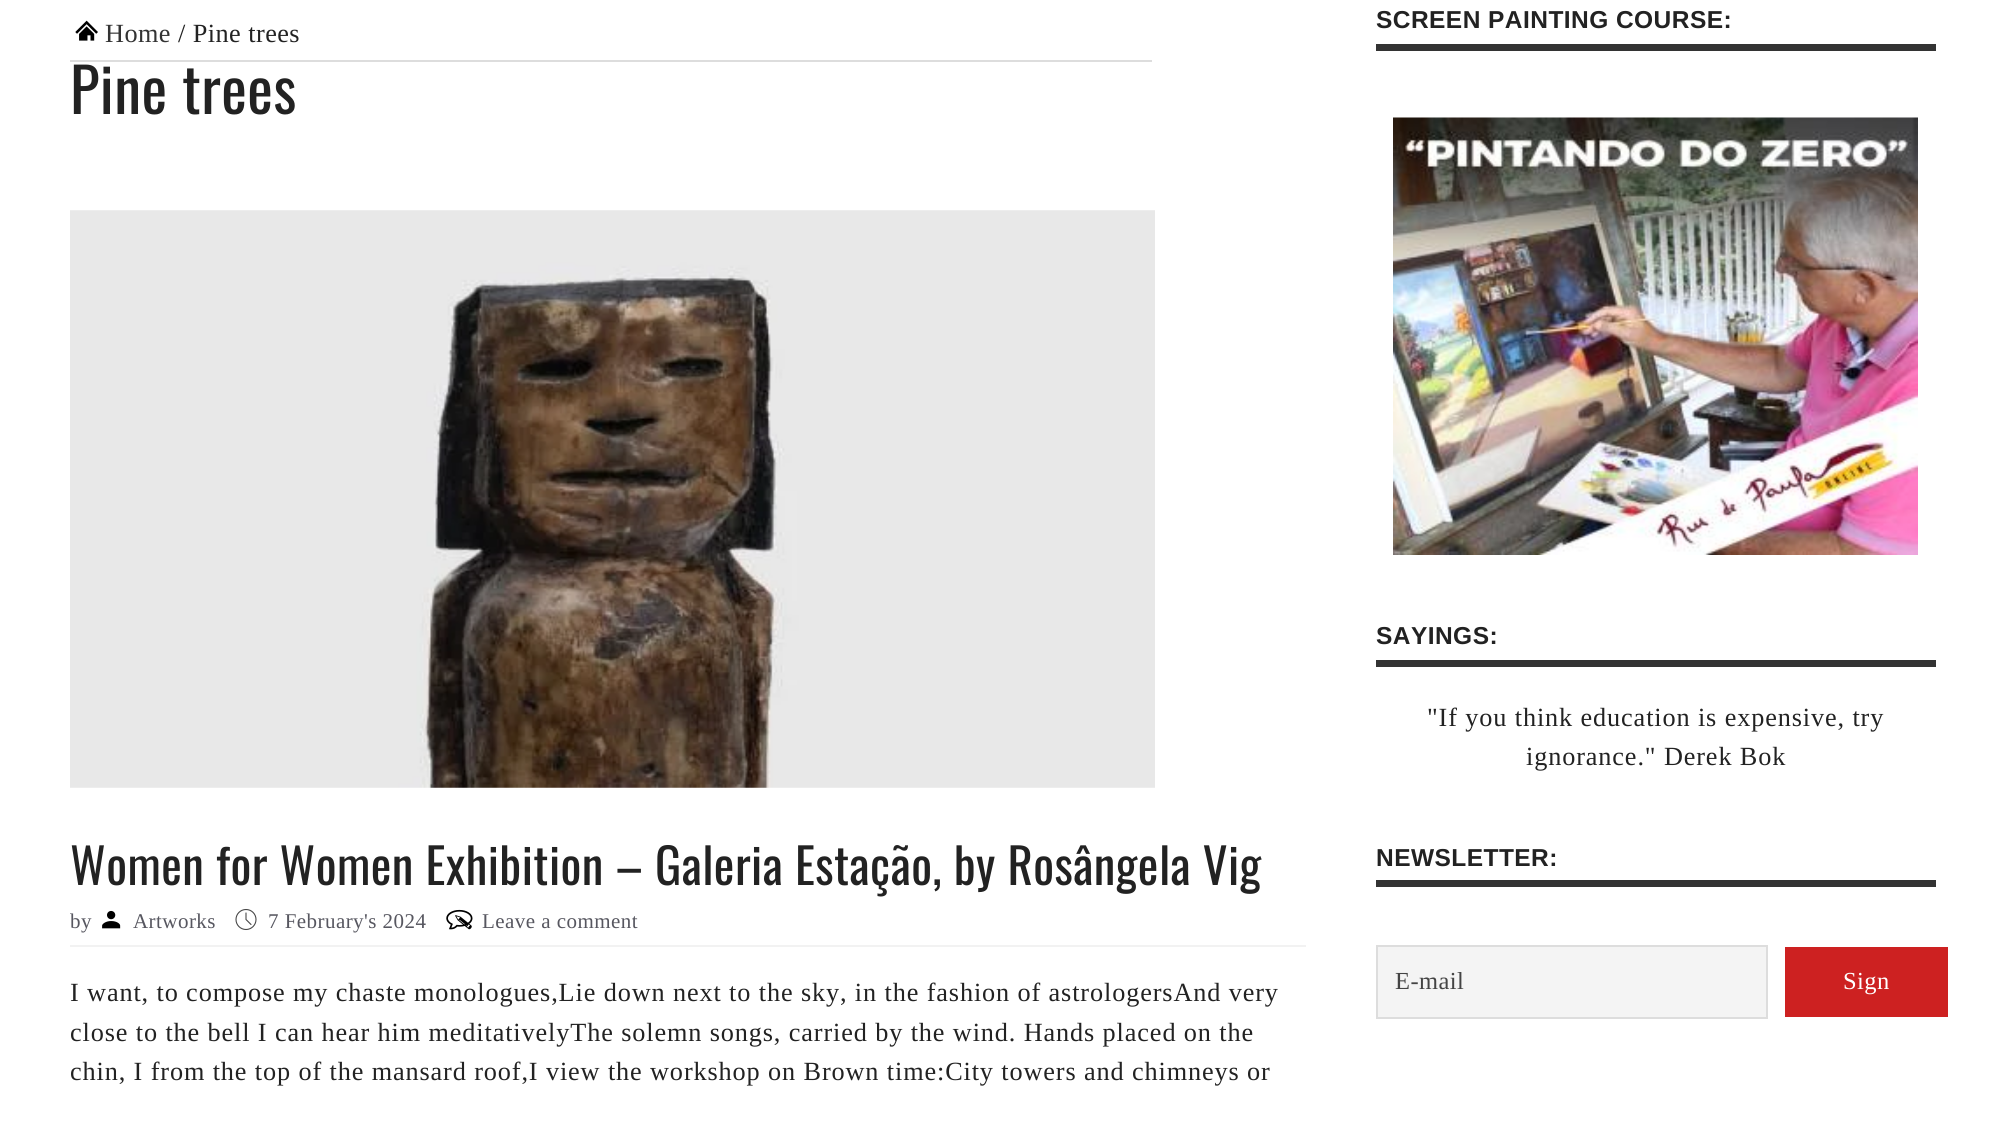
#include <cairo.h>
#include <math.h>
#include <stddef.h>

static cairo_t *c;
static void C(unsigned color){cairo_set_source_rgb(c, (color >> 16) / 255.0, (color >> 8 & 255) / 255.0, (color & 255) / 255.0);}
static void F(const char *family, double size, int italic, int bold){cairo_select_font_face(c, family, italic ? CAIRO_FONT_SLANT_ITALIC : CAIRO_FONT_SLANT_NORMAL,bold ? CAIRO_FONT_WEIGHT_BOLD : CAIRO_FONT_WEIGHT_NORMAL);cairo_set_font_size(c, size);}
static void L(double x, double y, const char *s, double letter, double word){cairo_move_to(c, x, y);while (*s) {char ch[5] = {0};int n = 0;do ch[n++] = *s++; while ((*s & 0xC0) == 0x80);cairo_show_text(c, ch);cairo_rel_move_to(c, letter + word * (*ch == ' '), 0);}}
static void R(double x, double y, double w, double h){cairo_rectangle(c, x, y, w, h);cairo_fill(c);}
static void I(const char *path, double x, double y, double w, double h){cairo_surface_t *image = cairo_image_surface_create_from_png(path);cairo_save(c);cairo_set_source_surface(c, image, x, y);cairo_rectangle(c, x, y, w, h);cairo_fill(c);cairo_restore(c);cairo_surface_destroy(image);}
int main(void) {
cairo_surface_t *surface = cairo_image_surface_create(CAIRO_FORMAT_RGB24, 2005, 1126);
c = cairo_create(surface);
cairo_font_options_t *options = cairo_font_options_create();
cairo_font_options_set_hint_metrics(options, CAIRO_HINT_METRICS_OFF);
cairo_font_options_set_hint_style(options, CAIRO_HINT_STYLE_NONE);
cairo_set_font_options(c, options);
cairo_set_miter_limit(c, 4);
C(0xffffff);
cairo_paint(c);
I("1.png",75,20,23,21);
F("Liberation Serif",26.25,0,0);
C(0x333333);
L(105,42,"Home",.45,0);
C(0x222222);
L(178,42,"/ Pine trees",.45,0);
C(0xdddddd);
R(70,60,1082,2);
F("Oswald",61,0,0);
C(0x222222);
L(70,114,"Pine trees",.45,0);
I("2.png",70,210,1085,578);
C(0xf2f2f2);
R(70,945,1236,2);
F("Oswald",49,0,0);
C(0x222222);
L(70,885,"Women for Women Exhibition – Galeria Estação, by Rosângela Vig",.45,0);
F("Liberation Serif",21,0,0);
C(0x575760);
L(70,928,"by",.45,0);
I("3.png",102,910,19,19);
L(133,928,"Artworks",.45,0);
cairo_new_path(c);
cairo_arc(c,246,919.5,10,0,2 * M_PI);
C(0x474747);
cairo_set_line_width(c,1.1);
cairo_stroke(c);
cairo_new_path(c);
cairo_move_to(c,246,913);
cairo_line_to(c,246,919.5);
cairo_line_to(c,251,924.5);
cairo_set_line_cap(c,CAIRO_LINE_CAP_ROUND);
cairo_set_line_join(c,CAIRO_LINE_JOIN_ROUND);
cairo_stroke(c);
C(0x575760);
L(268,928,"7 February's 2024",.45,0);
I("4.png",446,909,27,21);
L(482,928,"Leave a comment",.45,0);
F("Liberation Serif",26.25,0,0);
C(0x222222);
L(70,1001,"I want, to compose my chaste monologues,Lie down next to the sky, in the fashion of astrologersAnd very",.88,0);
L(70,1041,"close to the bell I can hear him meditativelyThe solemn songs, carried by the wind. Hands placed on the",.88,0);
L(70,1080,"chin, I from the top of the mansard roof,I view the workshop on Brown time:City towers and chimneys or",.88,0);
C(0x333333);
R(1376,44,560,7);
F("Liberation Sans",24.5,0,1);
C(0x222222);
L(1376,28,"SCREEN PAINTING COURSE:",.45,0);
I("5.png",1393,117,525,438);
C(0x333333);
R(1376,660,560,7);
C(0x222222);
L(1376,644,"SAYINGS:",.45,0);
F("Liberation Serif",26.25,0,0);
L(1427,726,"\"If you think education is expensive, try",.88,0);
L(1526,765,"ignorance.\" Derek Bok",.88,0);
C(0x333333);
R(1376,880,560,7);
F("Liberation Sans",24.5,0,1);
C(0x222222);
L(1376,866,"NEWSLETTER:",.45,0);
C(0xf4f4f4);
cairo_rectangle(c,1377,946,390,72);
cairo_fill_preserve(c);
C(0xdddddd);
cairo_set_line_width(c,2);
cairo_set_line_cap(c,CAIRO_LINE_CAP_BUTT);
cairo_set_line_join(c,CAIRO_LINE_JOIN_MITER);
cairo_stroke(c);
F("Liberation Serif",24.5,0,0);
C(0x444444);
L(1395,989,"E-mail",.45,0);
C(0xcd2121);
R(1785,947,163,70);
C(0xffffff);
L(1843,989,"Sign",.45,0);
cairo_surface_write_to_png(surface, "o.png");
cairo_font_options_destroy(options);
cairo_destroy(c);
cairo_surface_destroy(surface);
return 0;
}
